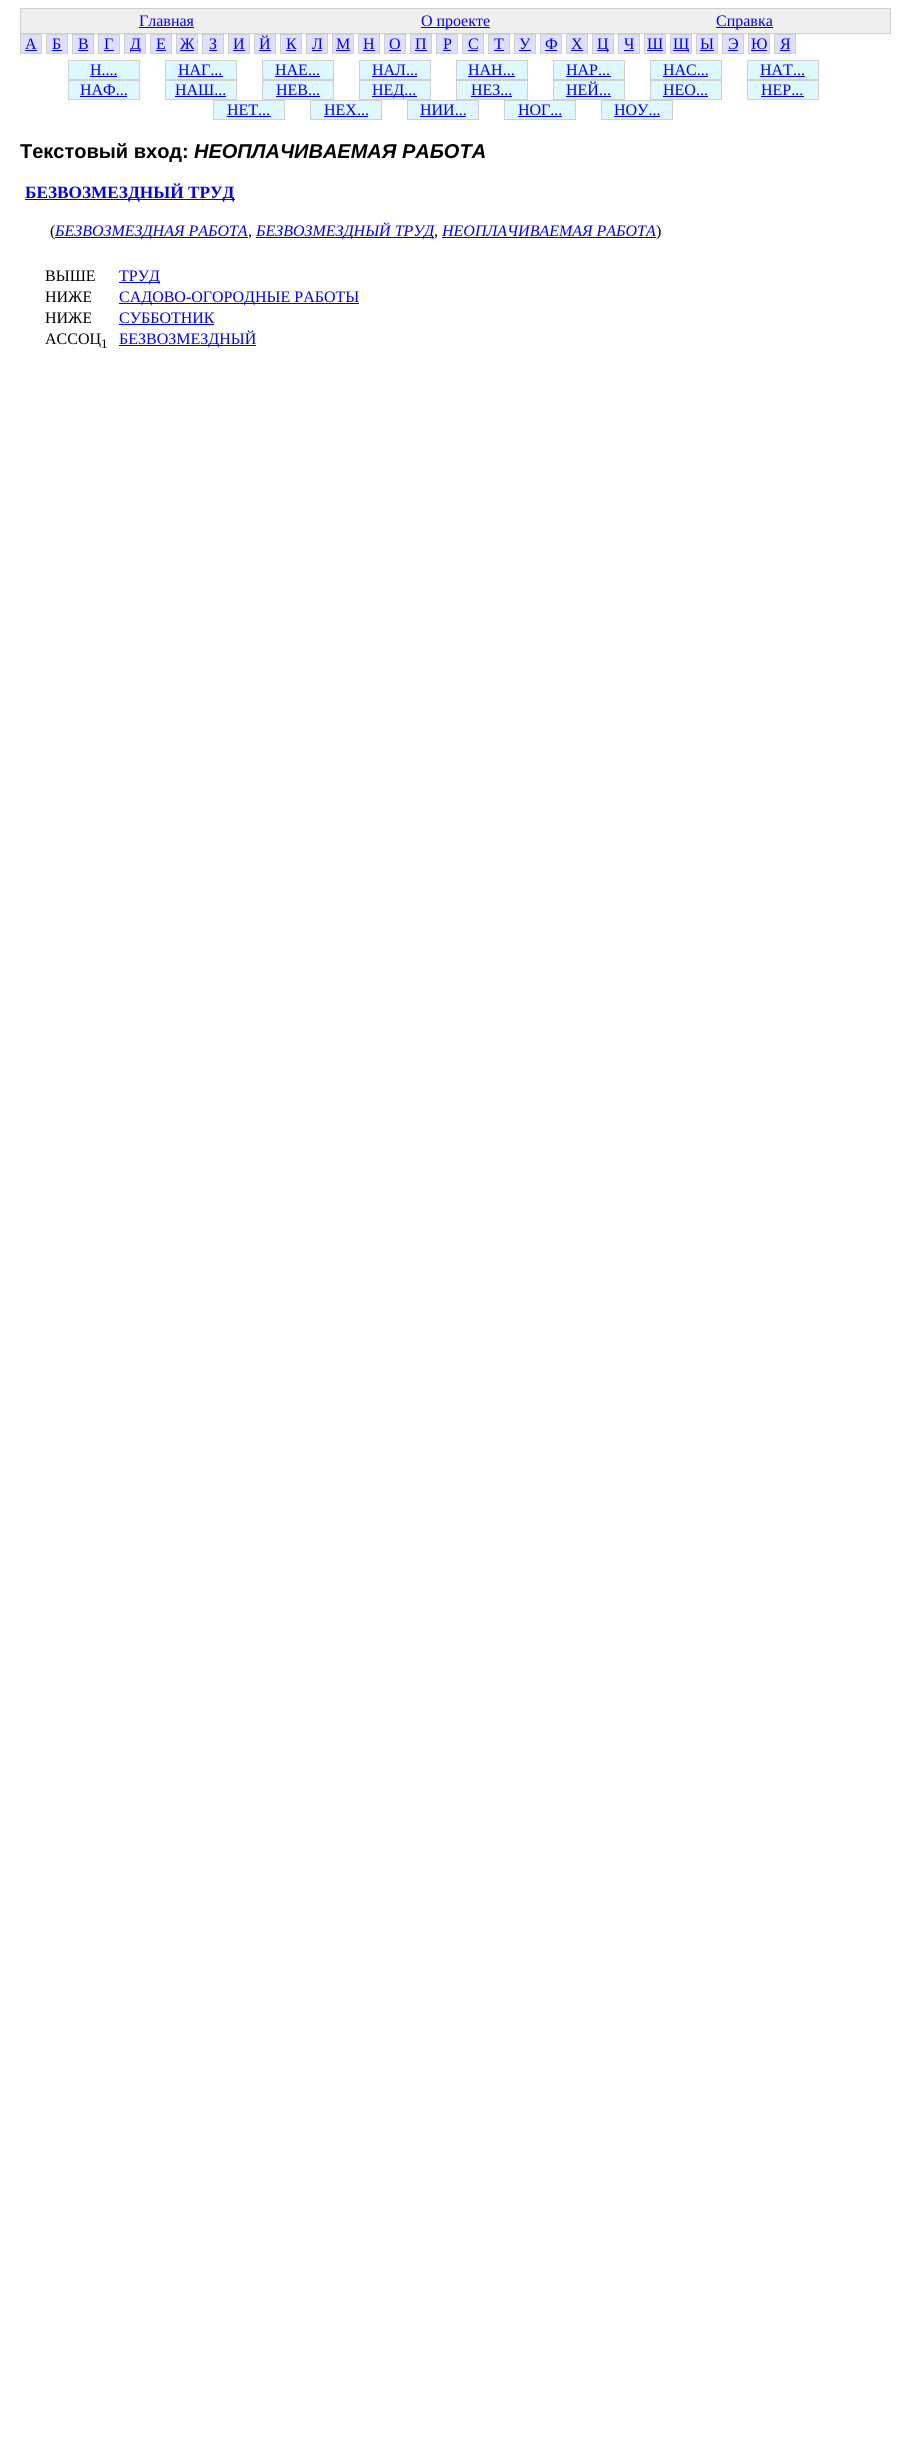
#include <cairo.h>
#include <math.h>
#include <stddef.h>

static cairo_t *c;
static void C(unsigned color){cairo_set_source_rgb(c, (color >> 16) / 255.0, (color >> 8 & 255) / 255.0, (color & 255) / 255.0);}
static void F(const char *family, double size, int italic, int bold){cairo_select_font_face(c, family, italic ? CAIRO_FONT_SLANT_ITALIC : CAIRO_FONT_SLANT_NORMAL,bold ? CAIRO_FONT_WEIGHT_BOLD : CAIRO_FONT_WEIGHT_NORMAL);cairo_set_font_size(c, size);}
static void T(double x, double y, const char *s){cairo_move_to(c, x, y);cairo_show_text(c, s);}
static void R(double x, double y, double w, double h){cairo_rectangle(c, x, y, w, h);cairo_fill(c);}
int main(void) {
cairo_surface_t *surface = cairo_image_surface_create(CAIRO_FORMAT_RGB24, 911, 2438);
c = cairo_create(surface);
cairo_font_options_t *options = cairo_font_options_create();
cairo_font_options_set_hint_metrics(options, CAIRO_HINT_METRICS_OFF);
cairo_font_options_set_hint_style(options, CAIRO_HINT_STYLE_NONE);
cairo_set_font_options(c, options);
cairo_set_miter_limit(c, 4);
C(0xffffff);
cairo_paint(c);
C(0xefefef);
cairo_rectangle(c,20.5,8.5,870,25);
cairo_fill_preserve(c);
C(0xcfcfcf);
cairo_set_line_width(c,1);
cairo_stroke(c);
F("Liberation Serif",16,0,0);
C(0x0000ee);
T(139,26,"Главная");
R(139,27,55,1);
R(421,27,69,1);
T(421,26,"О проекте");
R(716,27,57,1);
T(716,26,"Справка");
C(0xdfdfff);
cairo_rectangle(c,20.5,34.5,21,19);
cairo_fill_preserve(c);
C(0xcfcfcf);
cairo_stroke(c);
C(0x0000ee);
T(25,49,"А");
R(25,50,12,1);
C(0xdfdfff);
cairo_rectangle(c,46.5,34.5,21,19);
cairo_fill_preserve(c);
C(0xcfcfcf);
cairo_stroke(c);
C(0x0000ee);
T(52,49,"Б");
R(52,50,10,1);
C(0xdfdfff);
cairo_rectangle(c,72.5,34.5,21,19);
cairo_fill_preserve(c);
C(0xcfcfcf);
cairo_stroke(c);
C(0x0000ee);
T(78,49,"В");
R(78,50,10,1);
C(0xdfdfff);
cairo_rectangle(c,98.5,34.5,21,19);
cairo_fill_preserve(c);
C(0xcfcfcf);
cairo_stroke(c);
C(0x0000ee);
T(104,49,"Г");
R(104,50,10,1);
C(0xdfdfff);
cairo_rectangle(c,124.5,34.5,21,19);
cairo_fill_preserve(c);
C(0xcfcfcf);
cairo_stroke(c);
C(0x0000ee);
R(130,50,10,1);
T(130,49,"Д");
C(0xdfdfff);
cairo_rectangle(c,150.5,34.5,21,19);
cairo_fill_preserve(c);
C(0xcfcfcf);
cairo_stroke(c);
C(0x0000ee);
T(156,49,"Е");
R(156,50,10,1);
C(0xdfdfff);
cairo_rectangle(c,176.5,34.5,21,19);
cairo_fill_preserve(c);
C(0xcfcfcf);
cairo_stroke(c);
C(0x0000ee);
T(180,49,"Ж");
R(180,50,14,1);
C(0xdfdfff);
cairo_rectangle(c,202.5,34.5,21,19);
cairo_fill_preserve(c);
C(0xcfcfcf);
cairo_stroke(c);
C(0x0000ee);
T(209,49,"З");
R(209,50,8,1);
C(0xdfdfff);
cairo_rectangle(c,228.5,34.5,21,19);
cairo_fill_preserve(c);
C(0xcfcfcf);
cairo_stroke(c);
C(0x0000ee);
T(233,49,"И");
R(233,50,12,1);
C(0xdfdfff);
cairo_rectangle(c,254.5,34.5,21,19);
cairo_fill_preserve(c);
C(0xcfcfcf);
cairo_stroke(c);
C(0x0000ee);
T(259,49,"Й");
R(259,50,12,1);
C(0xdfdfff);
cairo_rectangle(c,280.5,34.5,21,19);
cairo_fill_preserve(c);
C(0xcfcfcf);
cairo_stroke(c);
C(0x0000ee);
T(286,49,"К");
R(286,50,10,1);
C(0xdfdfff);
cairo_rectangle(c,306.5,34.5,21,19);
cairo_fill_preserve(c);
C(0xcfcfcf);
cairo_stroke(c);
C(0x0000ee);
T(312,49,"Л");
R(312,50,10,1);
C(0xdfdfff);
cairo_rectangle(c,332.5,34.5,21,19);
cairo_fill_preserve(c);
C(0xcfcfcf);
cairo_stroke(c);
C(0x0000ee);
T(336,49,"М");
R(336,50,14,1);
C(0xdfdfff);
cairo_rectangle(c,358.5,34.5,21,19);
cairo_fill_preserve(c);
C(0xcfcfcf);
cairo_stroke(c);
C(0x0000ee);
T(363,49,"Н");
R(363,50,12,1);
C(0xdfdfff);
cairo_rectangle(c,384.5,34.5,21,19);
cairo_fill_preserve(c);
C(0xcfcfcf);
cairo_stroke(c);
C(0x0000ee);
T(389,49,"О");
R(389,50,12,1);
C(0xdfdfff);
cairo_rectangle(c,410.5,34.5,21,19);
cairo_fill_preserve(c);
C(0xcfcfcf);
cairo_stroke(c);
C(0x0000ee);
T(415,49,"П");
R(415,50,12,1);
C(0xdfdfff);
cairo_rectangle(c,436.5,34.5,21,19);
cairo_fill_preserve(c);
C(0xcfcfcf);
cairo_stroke(c);
C(0x0000ee);
T(443,49,"Р");
R(443,50,8,1);
C(0xdfdfff);
cairo_rectangle(c,462.5,34.5,21,19);
cairo_fill_preserve(c);
C(0xcfcfcf);
cairo_stroke(c);
C(0x0000ee);
T(468,49,"С");
R(468,50,10,1);
C(0xdfdfff);
cairo_rectangle(c,488.5,34.5,21,19);
cairo_fill_preserve(c);
C(0xcfcfcf);
cairo_stroke(c);
C(0x0000ee);
T(494,49,"Т");
R(494,50,10,1);
C(0xdfdfff);
cairo_rectangle(c,514.5,34.5,21,19);
cairo_fill_preserve(c);
C(0xcfcfcf);
cairo_stroke(c);
C(0x0000ee);
T(519,49,"У");
R(519,50,12,1);
C(0xdfdfff);
cairo_rectangle(c,540.5,34.5,21,19);
cairo_fill_preserve(c);
C(0xcfcfcf);
cairo_stroke(c);
C(0x0000ee);
T(545,49,"Ф");
R(545,50,12,1);
C(0xdfdfff);
cairo_rectangle(c,566.5,34.5,21,19);
cairo_fill_preserve(c);
C(0xcfcfcf);
cairo_stroke(c);
C(0x0000ee);
T(571,49,"Х");
R(571,50,12,1);
C(0xdfdfff);
cairo_rectangle(c,592.5,34.5,21,19);
cairo_fill_preserve(c);
C(0xcfcfcf);
cairo_stroke(c);
C(0x0000ee);
R(597,50,12,1);
T(597,49,"Ц");
C(0xdfdfff);
cairo_rectangle(c,618.5,34.5,21,19);
cairo_fill_preserve(c);
C(0xcfcfcf);
cairo_stroke(c);
C(0x0000ee);
T(624,49,"Ч");
R(624,50,10,1);
C(0xdfdfff);
cairo_rectangle(c,644.5,34.5,21,19);
cairo_fill_preserve(c);
C(0xcfcfcf);
cairo_stroke(c);
C(0x0000ee);
T(647,49,"Ш");
R(647,50,16,1);
C(0xdfdfff);
cairo_rectangle(c,670.5,34.5,21,19);
cairo_fill_preserve(c);
C(0xcfcfcf);
cairo_stroke(c);
C(0x0000ee);
R(673,50,16,1);
T(673,49,"Щ");
C(0xdfdfff);
cairo_rectangle(c,696.5,34.5,21,19);
cairo_fill_preserve(c);
C(0xcfcfcf);
cairo_stroke(c);
C(0x0000ee);
T(700,49,"Ы");
R(700,50,14,1);
C(0xdfdfff);
cairo_rectangle(c,722.5,34.5,21,19);
cairo_fill_preserve(c);
C(0xcfcfcf);
cairo_stroke(c);
C(0x0000ee);
T(728,49,"Э");
R(728,50,10,1);
C(0xdfdfff);
cairo_rectangle(c,748.5,34.5,21,19);
cairo_fill_preserve(c);
C(0xcfcfcf);
cairo_stroke(c);
C(0x0000ee);
T(751,49,"Ю");
R(751,50,16,1);
C(0xdfdfff);
cairo_rectangle(c,774.5,34.5,21,19);
cairo_fill_preserve(c);
C(0xcfcfcf);
cairo_stroke(c);
C(0x0000ee);
T(780,49,"Я");
R(780,50,10,1);
C(0xdff7ff);
cairo_rectangle(c,68.5,60.5,71,19);
cairo_fill_preserve(c);
C(0xcfcfcf);
cairo_stroke(c);
C(0x0000ee);
T(90,75,"Н....");
R(90,76,27,1);
C(0xdff7ff);
cairo_rectangle(c,165.5,60.5,71,19);
cairo_fill_preserve(c);
C(0xcfcfcf);
cairo_stroke(c);
C(0x0000ee);
T(178,75,"НАГ...");
R(178,76,45,1);
C(0xdff7ff);
cairo_rectangle(c,262.5,60.5,71,19);
cairo_fill_preserve(c);
C(0xcfcfcf);
cairo_stroke(c);
C(0x0000ee);
T(275,75,"НАЕ...");
R(275,76,45,1);
C(0xdff7ff);
cairo_rectangle(c,359.5,60.5,71,19);
cairo_fill_preserve(c);
C(0xcfcfcf);
cairo_stroke(c);
C(0x0000ee);
T(372,75,"НАЛ...");
R(372,76,45,1);
C(0xdff7ff);
cairo_rectangle(c,456.5,60.5,71,19);
cairo_fill_preserve(c);
C(0xcfcfcf);
cairo_stroke(c);
C(0x0000ee);
T(468,75,"НАН...");
R(468,76,47,1);
C(0xdff7ff);
cairo_rectangle(c,553.5,60.5,71,19);
cairo_fill_preserve(c);
C(0xcfcfcf);
cairo_stroke(c);
C(0x0000ee);
T(566,75,"НАР...");
R(566,76,45,1);
C(0xdff7ff);
cairo_rectangle(c,650.5,60.5,71,19);
cairo_fill_preserve(c);
C(0xcfcfcf);
cairo_stroke(c);
C(0x0000ee);
T(663,75,"НАС...");
R(663,76,45,1);
C(0xdff7ff);
cairo_rectangle(c,747.5,60.5,71,19);
cairo_fill_preserve(c);
C(0xcfcfcf);
cairo_stroke(c);
C(0x0000ee);
T(760,75,"НАТ...");
R(760,76,45,1);
C(0xdff7ff);
cairo_rectangle(c,68.5,80.5,71,19);
cairo_fill_preserve(c);
C(0xcfcfcf);
cairo_stroke(c);
C(0x0000ee);
T(80,95,"НАФ...");
R(80,96,47,1);
C(0xdff7ff);
cairo_rectangle(c,165.5,80.5,71,19);
cairo_fill_preserve(c);
C(0xcfcfcf);
cairo_stroke(c);
C(0x0000ee);
T(175,95,"НАШ...");
R(175,96,51,1);
C(0xdff7ff);
cairo_rectangle(c,262.5,80.5,71,19);
cairo_fill_preserve(c);
C(0xcfcfcf);
cairo_stroke(c);
C(0x0000ee);
T(276,95,"НЕВ...");
R(276,96,44,1);
C(0xdff7ff);
cairo_rectangle(c,359.5,80.5,71,19);
cairo_fill_preserve(c);
C(0xcfcfcf);
cairo_stroke(c);
C(0x0000ee);
R(372,96,45,1);
T(372,95,"НЕД...");
C(0xdff7ff);
cairo_rectangle(c,456.5,80.5,71,19);
cairo_fill_preserve(c);
C(0xcfcfcf);
cairo_stroke(c);
C(0x0000ee);
T(471,95,"НЕЗ...");
R(471,96,41,1);
C(0xdff7ff);
cairo_rectangle(c,553.5,80.5,71,19);
cairo_fill_preserve(c);
C(0xcfcfcf);
cairo_stroke(c);
C(0x0000ee);
T(566,95,"НЕЙ...");
R(566,96,45,1);
C(0xdff7ff);
cairo_rectangle(c,650.5,80.5,71,19);
cairo_fill_preserve(c);
C(0xcfcfcf);
cairo_stroke(c);
C(0x0000ee);
T(663,95,"НЕО...");
R(663,96,45,1);
C(0xdff7ff);
cairo_rectangle(c,747.5,80.5,71,19);
cairo_fill_preserve(c);
C(0xcfcfcf);
cairo_stroke(c);
C(0x0000ee);
T(761,95,"НЕР...");
R(761,96,43,1);
C(0xdff7ff);
cairo_rectangle(c,213.5,100.5,71,19);
cairo_fill_preserve(c);
C(0xcfcfcf);
cairo_stroke(c);
C(0x0000ee);
T(227,115,"НЕТ...");
R(227,116,44,1);
C(0xdff7ff);
cairo_rectangle(c,310.5,100.5,71,19);
cairo_fill_preserve(c);
C(0xcfcfcf);
cairo_stroke(c);
C(0x0000ee);
T(324,115,"НЕХ...");
R(324,116,44,1);
C(0xdff7ff);
cairo_rectangle(c,407.5,100.5,71,19);
cairo_fill_preserve(c);
C(0xcfcfcf);
cairo_stroke(c);
C(0x0000ee);
T(420,115,"НИИ...");
R(420,116,46,1);
C(0xdff7ff);
cairo_rectangle(c,504.5,100.5,71,19);
cairo_fill_preserve(c);
C(0xcfcfcf);
cairo_stroke(c);
C(0x0000ee);
T(518,115,"НОГ...");
R(518,116,44,1);
C(0xdff7ff);
cairo_rectangle(c,601.5,100.5,71,19);
cairo_fill_preserve(c);
C(0xcfcfcf);
cairo_stroke(c);
C(0x0000ee);
T(614,115,"НОУ...");
R(614,116,46,1);
F("Liberation Sans",20,0,1);
C(0x000000);
T(20,158,"Текстовый вход:");
F("Liberation Sans",20,1,1);
T(194,158,"НЕОПЛАЧИВАЕМАЯ РАБОТА");
C(0x0000ee);
R(25,199,210,1);
F("Liberation Serif",17.25,0,1);
T(25,198,"БЕЗВОЗМЕЗДНЫЙ ТРУД");
F("Liberation Serif",16,0,0);
C(0x000000);
T(50,236,"(");
C(0x0000ee);
R(55,237,193,1);
F("Liberation Serif",16,1,0);
T(55,236,"БЕЗВОЗМЕЗДНАЯ РАБОТА");
F("Liberation Serif",16,0,0);
C(0x000000);
T(248,236,",");
C(0x0000ee);
R(256,237,178,1);
F("Liberation Serif",16,1,0);
T(256,236,"БЕЗВОЗМЕЗДНЫЙ ТРУД");
F("Liberation Serif",16,0,0);
C(0x000000);
T(434,236,",");
F("Liberation Serif",16,1,0);
C(0x0000ee);
T(442,236,"НЕОПЛАЧИВАЕМАЯ РАБОТА");
R(442,237,214,1);
F("Liberation Serif",16,0,0);
C(0x000000);
T(656,236,")");
T(45,281,"ВЫШЕ");
C(0x0000ee);
R(119,282,41,1);
T(119,281,"ТРУД");
C(0x000000);
T(45,302,"НИЖЕ");
C(0x0000ee);
R(119,303,240,1);
T(119,302,"САДОВО-ОГОРОДНЫЕ РАБОТЫ");
C(0x000000);
T(45,323,"НИЖЕ");
C(0x0000ee);
T(119,323,"СУББОТНИК");
R(119,324,95,1);
C(0x000000);
T(45,344,"АССОЦ");
F("Liberation Serif",13,0,0);
T(101,348,"1");
C(0x0000ee);
R(119,345,137,1);
F("Liberation Serif",16,0,0);
T(119,344,"БЕЗВОЗМЕЗДНЫЙ");
cairo_surface_write_to_png(surface, "o.png");
cairo_font_options_destroy(options);
cairo_destroy(c);
cairo_surface_destroy(surface);
return 0;
}
